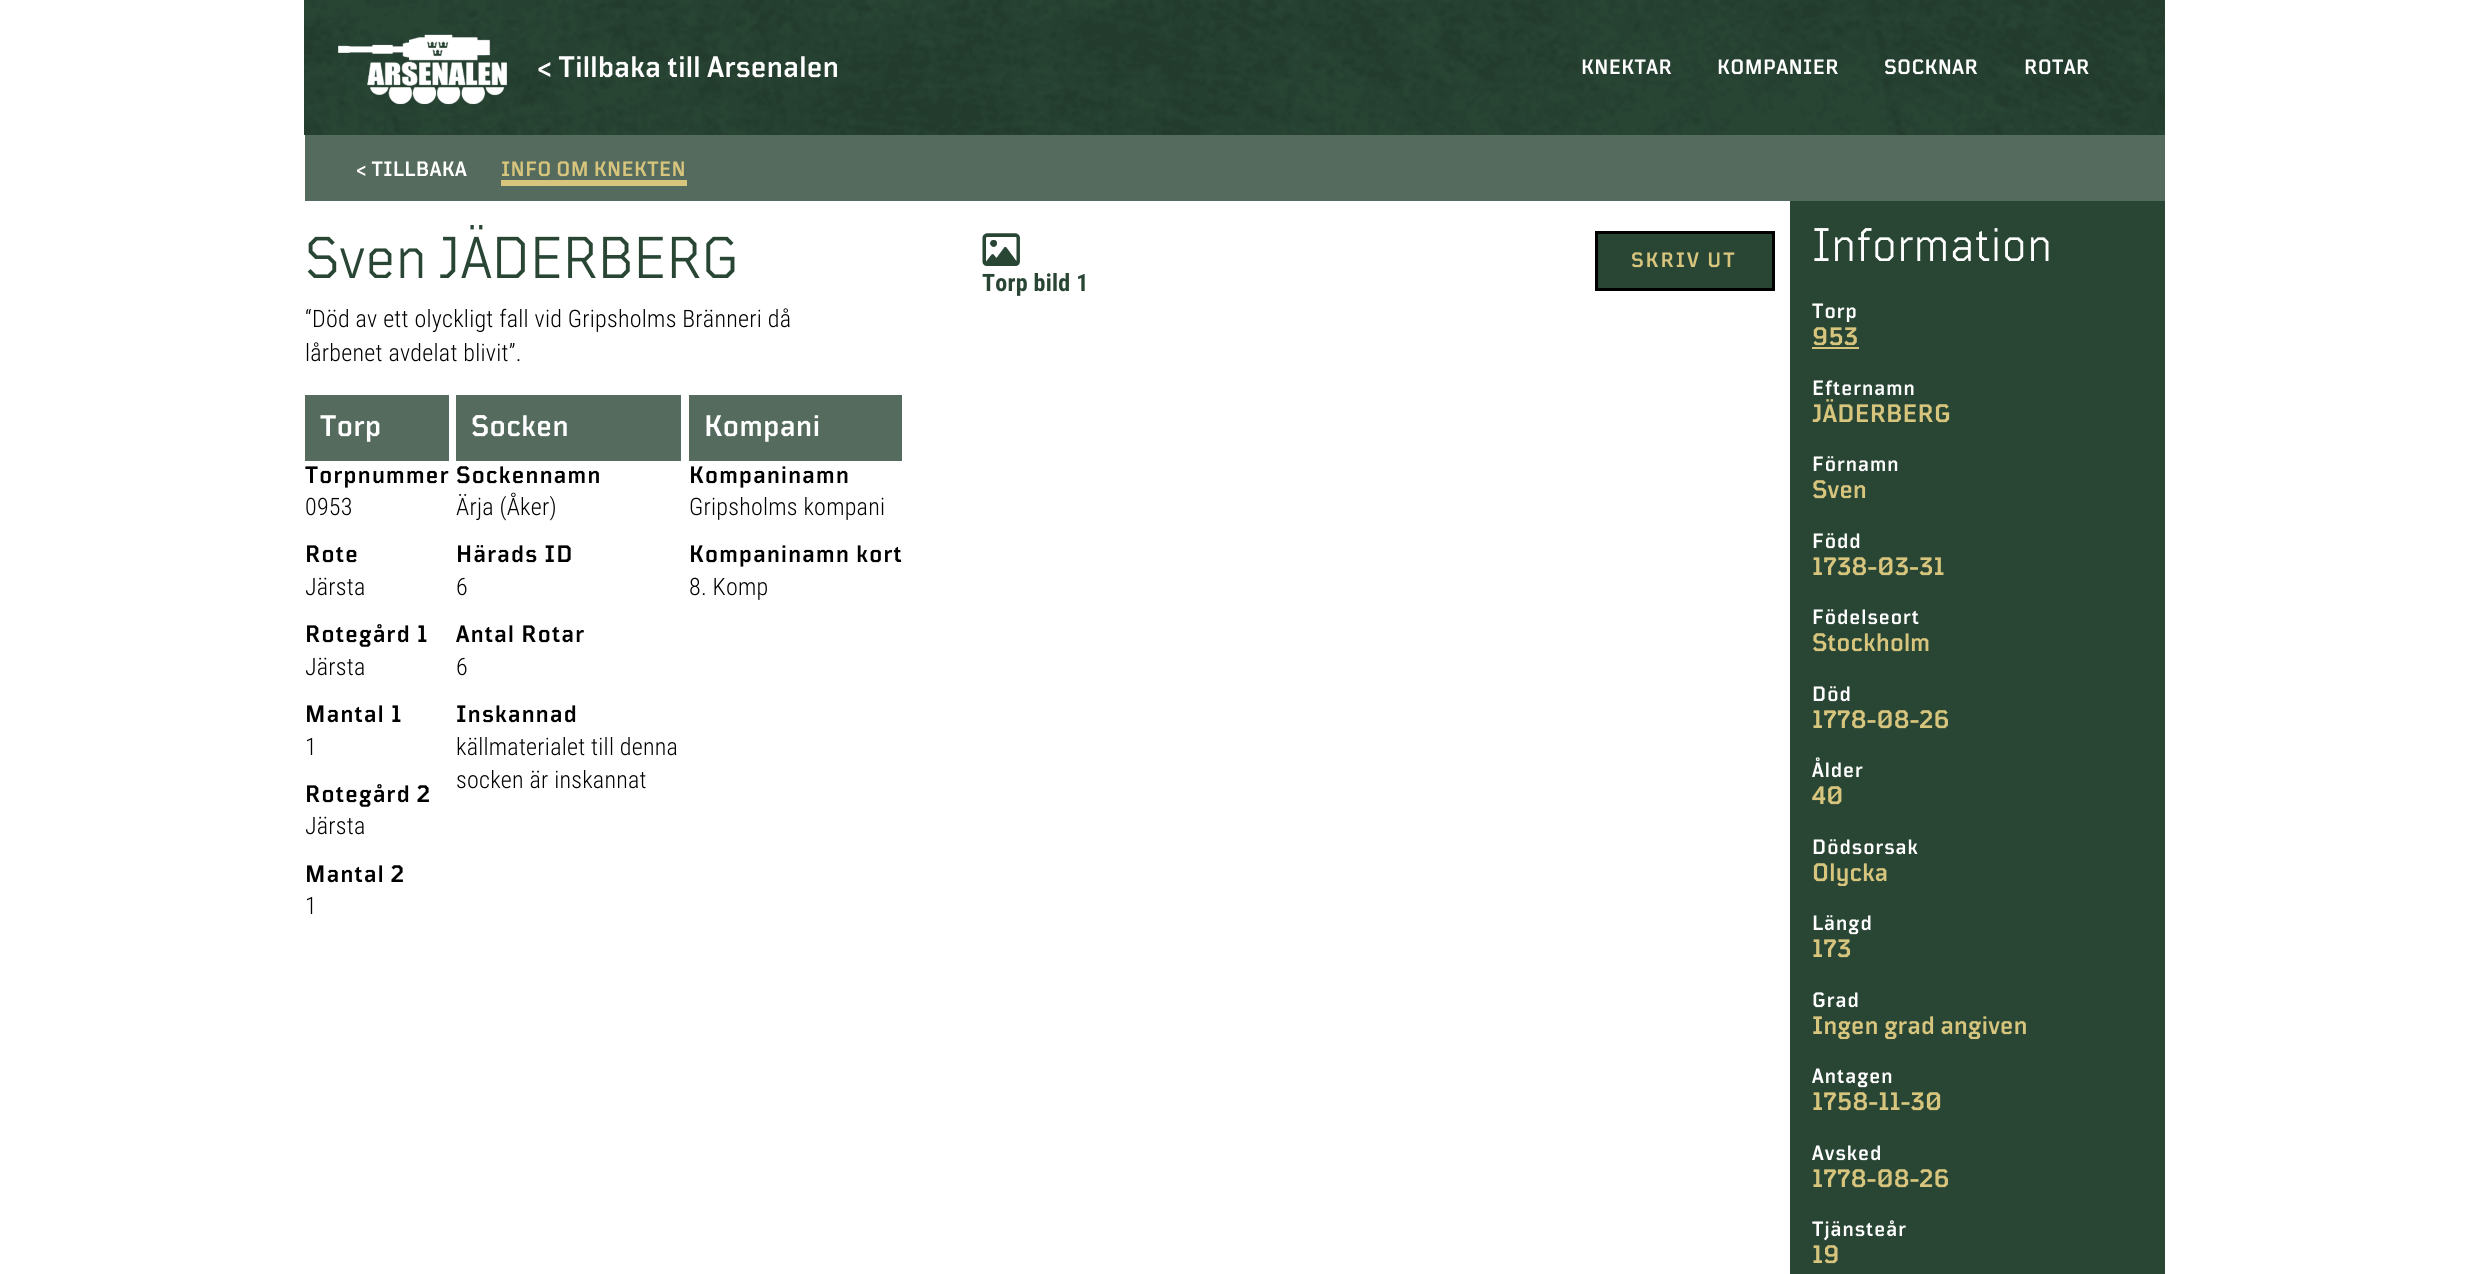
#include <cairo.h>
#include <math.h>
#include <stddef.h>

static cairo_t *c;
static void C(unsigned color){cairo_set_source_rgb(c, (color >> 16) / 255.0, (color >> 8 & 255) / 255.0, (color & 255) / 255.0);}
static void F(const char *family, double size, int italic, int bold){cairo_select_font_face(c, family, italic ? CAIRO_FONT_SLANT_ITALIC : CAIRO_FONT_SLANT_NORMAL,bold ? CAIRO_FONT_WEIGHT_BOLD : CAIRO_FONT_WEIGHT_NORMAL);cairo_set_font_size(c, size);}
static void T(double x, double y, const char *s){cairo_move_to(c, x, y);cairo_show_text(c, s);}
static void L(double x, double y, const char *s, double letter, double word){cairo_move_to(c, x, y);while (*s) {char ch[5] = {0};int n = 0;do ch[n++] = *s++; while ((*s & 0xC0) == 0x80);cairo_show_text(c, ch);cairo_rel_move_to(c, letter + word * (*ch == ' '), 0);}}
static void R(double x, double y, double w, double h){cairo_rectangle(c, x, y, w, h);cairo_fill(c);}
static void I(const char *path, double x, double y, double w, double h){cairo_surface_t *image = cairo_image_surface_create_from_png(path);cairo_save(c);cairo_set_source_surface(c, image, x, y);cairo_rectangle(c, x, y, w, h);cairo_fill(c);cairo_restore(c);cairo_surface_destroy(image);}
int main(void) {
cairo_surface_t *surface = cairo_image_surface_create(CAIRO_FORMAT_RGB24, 2469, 1274);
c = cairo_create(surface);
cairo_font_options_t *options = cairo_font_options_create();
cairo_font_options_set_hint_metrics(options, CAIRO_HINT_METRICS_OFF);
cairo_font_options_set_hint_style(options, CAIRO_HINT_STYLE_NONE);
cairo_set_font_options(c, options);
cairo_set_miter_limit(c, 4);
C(0xffffff);
cairo_paint(c);
C(0x294635);
R(2163,0,2,135);
I("1.png",304,0,1861,135);
I("2.png",338,34,169,71);
F("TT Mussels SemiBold",30,0,0);
C(0xffffff);
L(537,77,"< Tillbaka till Arsenalen",.3,0);
F("TT Mussels SemiBold",21,0,0);
L(1581,74,"KNEKTAR",.4,0);
L(1717,74,"KOMPANIER",.4,0);
L(1884,74,"SOCKNAR",.4,0);
L(2024,74,"ROTAR",.4,0);
C(0x546b5d);
R(305,135,1860,66);
C(0xffffff);
L(356,176,"< TILLBAKA",.4,0);
C(0xd8c57d);
L(501,176,"INFO OM KNEKTEN",.4,0);
R(501,180,186,6);
F("TT Mussels",60,0,0);
C(0x294635);
T(305,278,"Sven JÄDERBERG");
F("Roboto Condensed Light",24,0,0);
C(0x000000);
L(305,327,"“Död av ett olyckligt fall vid Gripsholms Bränneri då",.25,0);
L(305,361,"lårbenet avdelat blivit”.",.25,0);
C(0x294635);
cairo_rectangle(c,1596.5,232.5,177,57);
cairo_fill_preserve(c);
C(0x000000);
cairo_set_line_width(c,3);
cairo_stroke(c);
F("TT Mussels SemiBold",21,0,0);
C(0xd8c57d);
L(1631,267,"SKRIV UT",2,0);
I("3.png",982,233,38,33);
F("Roboto Condensed",24,0,1);
C(0x294635);
L(982,291,"Torp bild 1",.25,0);
C(0x546b5d);
R(305,395,144,66);
F("TT Mussels SemiBold",30,0,0);
C(0xffffff);
L(320,436,"Torp",.5,0);
F("TT Mussels SemiBold",24,0,0);
C(0x000000);
L(305,483,"Torpnummer",1.25,0);
F("Roboto Condensed Light",24,0,0);
L(305,515,"0953",.25,0);
F("TT Mussels SemiBold",24,0,0);
L(305,562,"Rote",1.25,0);
F("Roboto Condensed Light",24,0,0);
L(305,595,"Järsta",.25,0);
F("TT Mussels SemiBold",24,0,0);
L(305,642,"Rotegård 1",1.25,0);
F("Roboto Condensed Light",24,0,0);
L(305,675,"Järsta",.25,0);
F("TT Mussels SemiBold",24,0,0);
L(305,722,"Mantal 1",1.25,0);
F("Roboto Condensed Light",24,0,0);
L(305,755,"1",.25,0);
F("TT Mussels SemiBold",24,0,0);
L(305,802,"Rotegård 2",1.25,0);
F("Roboto Condensed Light",24,0,0);
L(305,834,"Järsta",.25,0);
F("TT Mussels SemiBold",24,0,0);
L(305,882,"Mantal 2",1.25,0);
F("Roboto Condensed Light",24,0,0);
L(305,914,"1",.25,0);
C(0x546b5d);
R(456,395,225,66);
F("TT Mussels SemiBold",30,0,0);
C(0xffffff);
L(471,436,"Socken",.5,0);
F("TT Mussels SemiBold",24,0,0);
C(0x000000);
L(456,483,"Sockennamn",1.25,0);
F("Roboto Condensed Light",24,0,0);
L(456,515,"Ärja (Åker)",.25,0);
F("TT Mussels SemiBold",24,0,0);
L(456,562,"Härads ID",1.25,0);
F("Roboto Condensed Light",24,0,0);
L(456,595,"6",.25,0);
F("TT Mussels SemiBold",24,0,0);
L(456,642,"Antal Rotar",1.25,0);
F("Roboto Condensed Light",24,0,0);
L(456,675,"6",.25,0);
F("TT Mussels SemiBold",24,0,0);
L(456,722,"Inskannad",1.25,0);
F("Roboto Condensed Light",24,0,0);
L(456,755,"källmaterialet till denna",.25,0);
L(456,788,"socken är inskannat",.25,0);
C(0x546b5d);
R(689,395,213,66);
F("TT Mussels SemiBold",30,0,0);
C(0xffffff);
L(704,436,"Kompani",.5,0);
F("TT Mussels SemiBold",24,0,0);
C(0x000000);
L(689,483,"Kompaninamn",1.25,0);
F("Roboto Condensed Light",24,0,0);
L(689,515,"Gripsholms kompani",.25,0);
F("TT Mussels SemiBold",24,0,0);
L(689,562,"Kompaninamn kort",1.25,0);
F("Roboto Condensed Light",24,0,0);
L(689,595,"8. Komp",.25,0);
C(0x294635);
R(1790,201,375,1073);
F("TT Mussels",48,0,0);
C(0xffffff);
L(1812,261,"Information",.3,0);
F("TT Mussels SemiBold",21,0,0);
L(1812,318,"Torp",1,0);
F("TT Mussels SemiBold",25.5,0,0);
C(0xd8c57d);
L(1812,345,"953",.25,0);
R(1812,347,47,2);
F("TT Mussels SemiBold",21,0,0);
C(0xffffff);
L(1812,395,"Efternamn",1,0);
F("TT Mussels SemiBold",25.5,0,0);
C(0xd8c57d);
L(1812,422,"JÄDERBERG",.25,0);
F("TT Mussels SemiBold",21,0,0);
C(0xffffff);
L(1812,471,"Förnamn",1,0);
F("TT Mussels SemiBold",25.5,0,0);
C(0xd8c57d);
L(1812,498,"Sven",.25,0);
F("TT Mussels SemiBold",21,0,0);
C(0xffffff);
L(1812,548,"Född",1,0);
F("TT Mussels SemiBold",25.5,0,0);
C(0xd8c57d);
L(1812,575,"1738-03-31",.25,0);
F("TT Mussels SemiBold",21,0,0);
C(0xffffff);
L(1812,624,"Födelseort",1,0);
F("TT Mussels SemiBold",25.5,0,0);
C(0xd8c57d);
L(1812,651,"Stockholm",.25,0);
F("TT Mussels SemiBold",21,0,0);
C(0xffffff);
L(1812,701,"Död",1,0);
F("TT Mussels SemiBold",25.5,0,0);
C(0xd8c57d);
L(1812,728,"1778-08-26",.25,0);
F("TT Mussels SemiBold",21,0,0);
C(0xffffff);
L(1812,777,"Ålder",1,0);
F("TT Mussels SemiBold",25.5,0,0);
C(0xd8c57d);
L(1812,804,"40",.25,0);
F("TT Mussels SemiBold",21,0,0);
C(0xffffff);
L(1812,854,"Dödsorsak",1,0);
F("TT Mussels SemiBold",25.5,0,0);
C(0xd8c57d);
L(1812,881,"Olycka",.25,0);
F("TT Mussels SemiBold",21,0,0);
C(0xffffff);
L(1812,930,"Längd",1,0);
F("TT Mussels SemiBold",25.5,0,0);
C(0xd8c57d);
L(1812,957,"173",.25,0);
F("TT Mussels SemiBold",21,0,0);
C(0xffffff);
L(1812,1007,"Grad",1,0);
F("TT Mussels SemiBold",25.5,0,0);
C(0xd8c57d);
L(1812,1034,"Ingen grad angiven",.25,0);
F("TT Mussels SemiBold",21,0,0);
C(0xffffff);
L(1812,1083,"Antagen",1,0);
F("TT Mussels SemiBold",25.5,0,0);
C(0xd8c57d);
L(1812,1110,"1758-11-30",.25,0);
F("TT Mussels SemiBold",21,0,0);
C(0xffffff);
L(1812,1160,"Avsked",1,0);
F("TT Mussels SemiBold",25.5,0,0);
C(0xd8c57d);
L(1812,1187,"1778-08-26",.25,0);
F("TT Mussels SemiBold",21,0,0);
C(0xffffff);
L(1812,1236,"Tjänsteår",1,0);
F("TT Mussels SemiBold",25.5,0,0);
C(0xd8c57d);
L(1812,1263,"19",.25,0);
cairo_surface_write_to_png(surface, "o.png");
cairo_font_options_destroy(options);
cairo_destroy(c);
cairo_surface_destroy(surface);
return 0;
}
